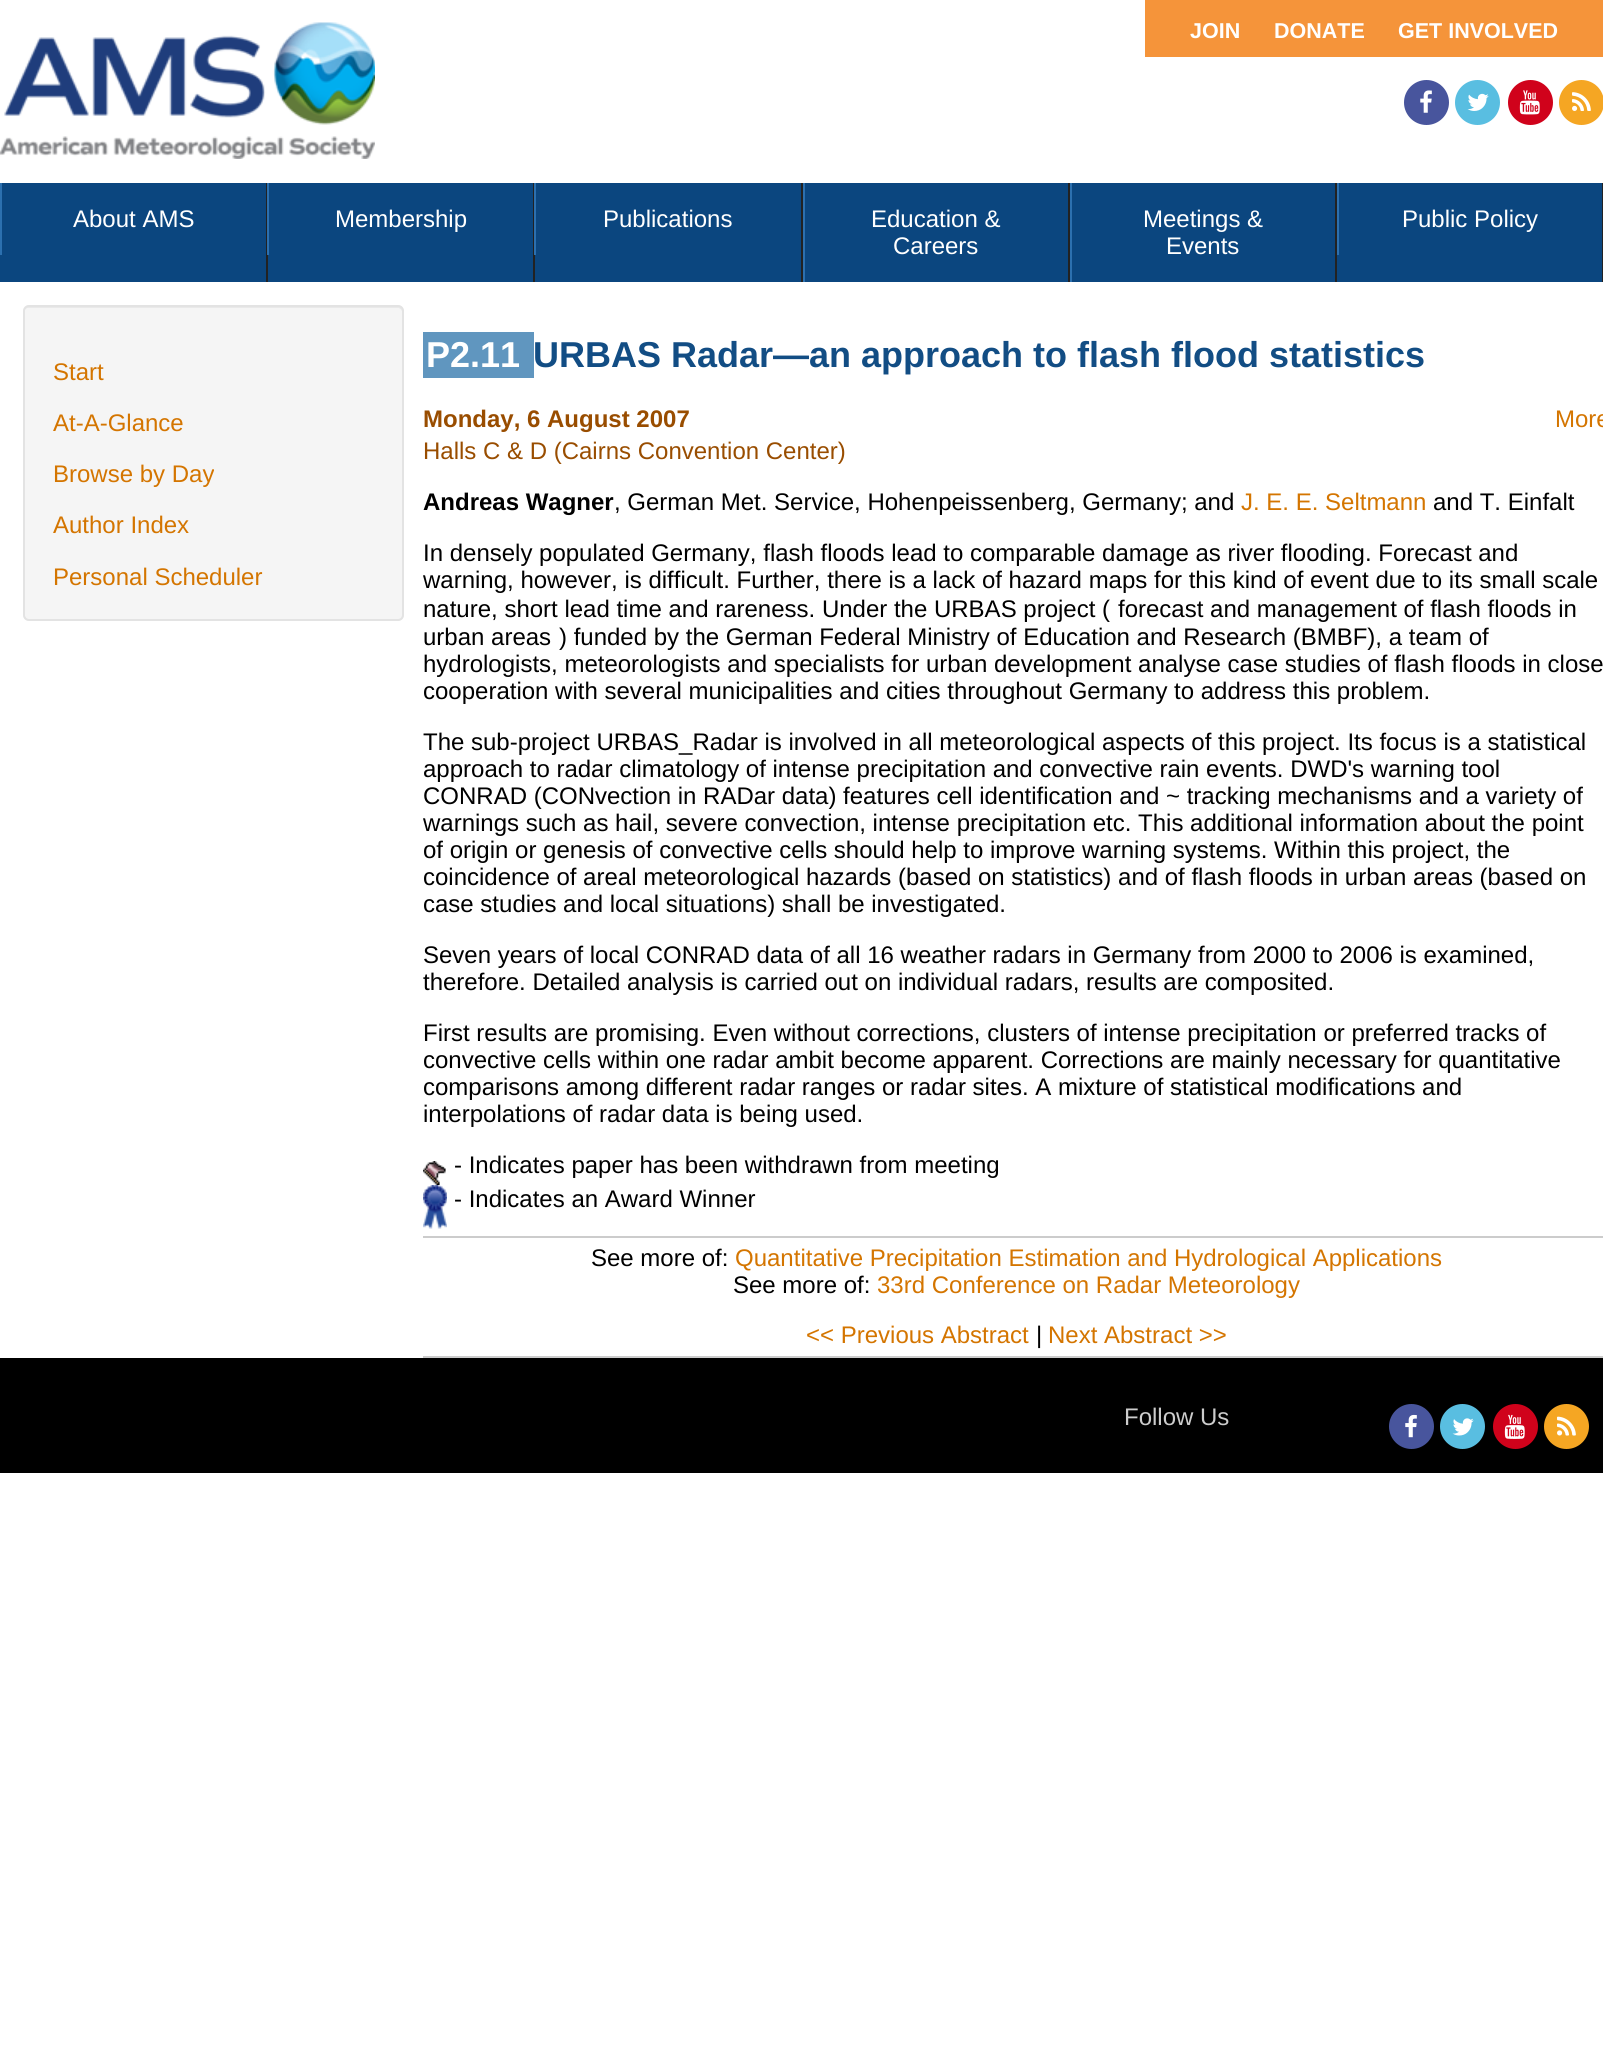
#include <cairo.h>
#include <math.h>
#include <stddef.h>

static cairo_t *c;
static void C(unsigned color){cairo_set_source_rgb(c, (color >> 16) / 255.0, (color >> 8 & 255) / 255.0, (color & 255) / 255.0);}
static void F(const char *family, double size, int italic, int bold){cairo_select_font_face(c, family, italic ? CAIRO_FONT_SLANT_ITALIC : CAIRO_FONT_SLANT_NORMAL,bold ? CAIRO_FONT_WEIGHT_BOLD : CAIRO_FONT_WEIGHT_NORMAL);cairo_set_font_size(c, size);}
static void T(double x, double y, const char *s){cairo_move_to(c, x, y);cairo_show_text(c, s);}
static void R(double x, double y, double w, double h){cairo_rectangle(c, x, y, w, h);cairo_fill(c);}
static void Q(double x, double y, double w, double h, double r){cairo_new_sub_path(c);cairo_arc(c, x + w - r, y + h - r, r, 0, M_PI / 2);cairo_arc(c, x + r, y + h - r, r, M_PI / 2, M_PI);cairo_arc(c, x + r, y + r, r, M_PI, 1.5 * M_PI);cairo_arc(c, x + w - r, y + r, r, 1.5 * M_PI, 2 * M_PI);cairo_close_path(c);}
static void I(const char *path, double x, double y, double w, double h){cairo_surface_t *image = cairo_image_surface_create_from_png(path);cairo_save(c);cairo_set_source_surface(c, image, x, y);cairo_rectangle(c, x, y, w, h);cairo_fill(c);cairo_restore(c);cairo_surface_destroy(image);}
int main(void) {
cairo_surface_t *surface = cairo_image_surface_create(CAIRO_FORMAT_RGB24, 1603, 2053);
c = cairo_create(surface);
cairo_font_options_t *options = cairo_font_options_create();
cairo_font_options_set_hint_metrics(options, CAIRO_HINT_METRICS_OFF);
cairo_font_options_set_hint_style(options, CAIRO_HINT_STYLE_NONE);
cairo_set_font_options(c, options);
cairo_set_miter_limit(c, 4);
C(0xffffff);
cairo_paint(c);
I("1.png",0,22,375,137);
C(0xf5943a);
R(1145,0,458,57);
F("Liberation Sans",21.5,0,1);
C(0xffffff);
T(1190,38,"JOIN");
T(1274,38,"DONATE");
T(1398,38,"GET INVOLVED");
C(0x48559d);
cairo_new_path(c);
cairo_arc(c,1426.5,102.5,22.5,0,2 * M_PI);
cairo_fill(c);
I("2.png",1420,90,12,23);
C(0x59bee1);
cairo_arc(c,1477.5,102.5,22.5,0,2 * M_PI);
cairo_fill(c);
I("3.png",1467,93,22,18);
C(0xd0021b);
cairo_arc(c,1530.5,102.5,22.5,0,2 * M_PI);
cairo_fill(c);
I("4.png",1519,90,21,25);
C(0xf5a623);
cairo_arc(c,1581.5,102.5,22.5,0,2 * M_PI);
cairo_fill(c);
I("5.png",1572,92,19,19);
C(0x0b467f);
R(0,183,1602,99);
C(0x222222);
R(266,183,2,99);
C(0x2c70af);
R(0,183,2,72);
F("Liberation Sans",24,0,0);
C(0xffffff);
T(73,227,"About AMS");
C(0x222222);
R(533,183,2,99);
C(0x2c70af);
R(267,183,2,72);
C(0xffffff);
T(335,227,"Membership");
C(0x222222);
R(801,183,2,99);
C(0x2c70af);
R(534,183,2,72);
C(0xffffff);
T(603,227,"Publications");
C(0x222222);
R(1068,183,2,99);
C(0x2c70af);
R(803,183,2,99);
C(0xffffff);
T(871,227,"Education &");
T(893,254,"Careers");
C(0x222222);
R(1335,183,2,99);
C(0x2c70af);
R(1070,183,2,99);
C(0xffffff);
T(1143,227,"Meetings &");
T(1166,254,"Events");
C(0x222222);
R(1602,183,1,99);
C(0x2c70af);
R(1337,183,2,72);
C(0xffffff);
T(1402,227,"Public Policy");
C(0xf5f5f5);
Q(23,305,381,316,6);
cairo_fill(c);
C(0xe9e9e9);
cairo_new_path(c);
cairo_move_to(c,28,308);
cairo_line_to(c,398,308);
cairo_curve_to(c,400,308,402,310,402,312);
cairo_line_to(c,402,311);
cairo_curve_to(c,402,308,400,306,397,306);
cairo_line_to(c,29,306);
cairo_curve_to(c,26,306,24,308,24,311);
cairo_line_to(c,24,312);
cairo_curve_to(c,24,310,26,308,28,308);
cairo_close_path(c);
cairo_fill(c);
Q(24,306,379,314,5);
C(0xe3e3e3);
cairo_stroke(c);
C(0xd47500);
T(53,380,"Start");
T(53,431,"At-A-Glance");
T(53,482,"Browse by Day");
T(53,533,"Author Index");
T(53,585,"Personal Scheduler");
C(0x6096bf);
R(423,332,111,46);
F("Liberation Sans",36,0,1);
C(0xffffff);
T(426,367,"P2.11");
C(0x124d84);
T(533,367,"URBAS Radar—an approach to flash flood statistics");
F("Liberation Sans",24,0,1);
C(0x994d00);
T(423,427,"Monday, 6 August 2007");
F("Liberation Sans",24,0,0);
C(0xd47500);
T(1555,427,"More");
C(0x994d00);
T(423,459,"Halls C & D (Cairns Convention Center)");
F("Liberation Sans",24,0,1);
C(0x000000);
T(423,510,"Andreas Wagner");
F("Liberation Sans",24,0,0);
T(614,510,", German Met. Service, Hohenpeissenberg, Germany; and");
C(0xd47500);
T(1241,510,"J. E. E. Seltmann");
C(0x000000);
T(1433,510,"and T. Einfalt");
T(423,561,"In densely populated Germany, flash floods lead to comparable damage as river flooding. Forecast and");
T(423,588,"warning, however, is difficult. Further, there is a lack of hazard maps for this kind of event due to its small scale");
T(423,617,"nature, short lead time and rareness. Under the URBAS project (");
T(1118,617,"forecast and management of flash floods in");
T(423,645,"urban areas");
T(559,645,") funded by the German Federal Ministry of Education and Research (BMBF), a team of");
T(423,672,"hydrologists, meteorologists and specialists for urban development analyse case studies of flash floods in close");
T(423,699,"cooperation with several municipalities and cities throughout Germany to address this problem.");
T(423,750,"The sub-project URBAS_Radar is involved in all meteorological aspects of this project. Its focus is a statistical");
T(423,777,"approach to radar climatology of intense precipitation and convective rain events. DWD's warning tool");
T(423,804,"CONRAD (CONvection in RADar data) features cell identification and ~ tracking mechanisms and a variety of");
T(423,831,"warnings such as hail, severe convection, intense precipitation etc. This additional information about the point");
T(423,858,"of origin or genesis of convective cells should help to improve warning systems. Within this project, the");
T(423,885,"coincidence of areal meteorological hazards (based on statistics) and of flash floods in urban areas (based on");
T(423,912,"case studies and local situations) shall be investigated.");
T(423,963,"Seven years of local CONRAD data of all 16 weather radars in Germany from 2000 to 2006 is examined,");
T(423,990,"therefore. Detailed analysis is carried out on individual radars, results are composited.");
T(423,1041,"First results are promising. Even without corrections, clusters of intense precipitation or preferred tracks of");
T(423,1068,"convective cells within one radar ambit become apparent. Corrections are mainly necessary for quantitative");
T(423,1095,"comparisons among different radar ranges or radar sites. A mixture of statistical modifications and");
T(423,1122,"interpolations of radar data is being used.");
I("6.png",423,1161,23,24);
T(454,1173,"- Indicates paper has been withdrawn from meeting");
I("7.png",423,1185,24,44);
T(454,1207,"- Indicates an Award Winner");
C(0xcccccc);
R(423,1236,1180,2);
C(0x000000);
T(591,1266,"See more of:");
C(0xd47500);
T(735,1266,"Quantitative Precipitation Estimation and Hydrological Applications");
C(0x000000);
T(733,1293,"See more of:");
C(0xd47500);
T(877,1293,"33rd Conference on Radar Meteorology");
C(0xcccccc);
R(423,1356,1180,2);
C(0xd47500);
T(806,1343,"<< Previous Abstract");
C(0x000000);
T(1036,1343,"|");
C(0xd47500);
T(1048,1343,"Next Abstract >>");
C(0x000000);
R(0,1358,1603,115);
C(0xcccccc);
T(1124,1425,"Follow Us");
C(0x48559d);
cairo_new_path(c);
cairo_arc(c,1411.5,1426.5,22.5,0,2 * M_PI);
cairo_fill(c);
I("8.png",1405,1414,12,24);
C(0x59bee1);
cairo_arc(c,1462.5,1426.5,22.5,0,2 * M_PI);
cairo_fill(c);
I("9.png",1452,1418,22,18);
C(0xd0021b);
cairo_arc(c,1515.5,1426.5,22.5,0,2 * M_PI);
cairo_fill(c);
I("10.png",1504,1414,21,25);
C(0xf5a623);
cairo_arc(c,1566.5,1426.5,22.5,0,2 * M_PI);
cairo_fill(c);
I("11.png",1557,1416,19,20);
cairo_surface_write_to_png(surface, "o.png");
cairo_font_options_destroy(options);
cairo_destroy(c);
cairo_surface_destroy(surface);
return 0;
}
